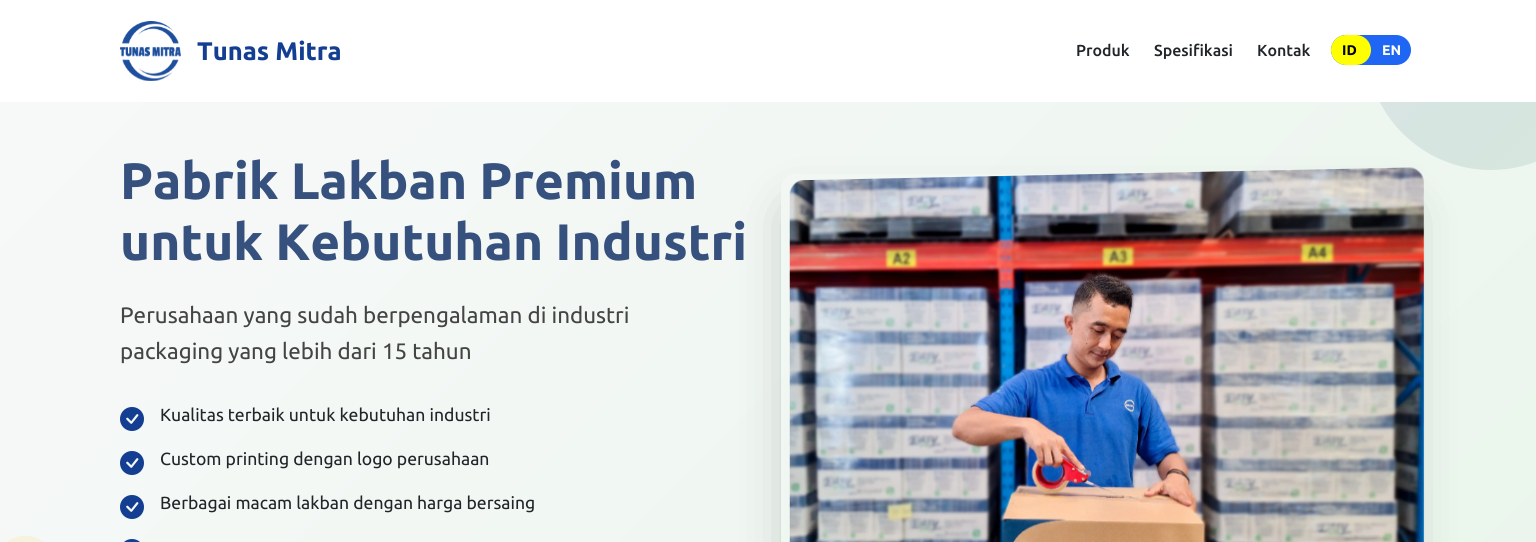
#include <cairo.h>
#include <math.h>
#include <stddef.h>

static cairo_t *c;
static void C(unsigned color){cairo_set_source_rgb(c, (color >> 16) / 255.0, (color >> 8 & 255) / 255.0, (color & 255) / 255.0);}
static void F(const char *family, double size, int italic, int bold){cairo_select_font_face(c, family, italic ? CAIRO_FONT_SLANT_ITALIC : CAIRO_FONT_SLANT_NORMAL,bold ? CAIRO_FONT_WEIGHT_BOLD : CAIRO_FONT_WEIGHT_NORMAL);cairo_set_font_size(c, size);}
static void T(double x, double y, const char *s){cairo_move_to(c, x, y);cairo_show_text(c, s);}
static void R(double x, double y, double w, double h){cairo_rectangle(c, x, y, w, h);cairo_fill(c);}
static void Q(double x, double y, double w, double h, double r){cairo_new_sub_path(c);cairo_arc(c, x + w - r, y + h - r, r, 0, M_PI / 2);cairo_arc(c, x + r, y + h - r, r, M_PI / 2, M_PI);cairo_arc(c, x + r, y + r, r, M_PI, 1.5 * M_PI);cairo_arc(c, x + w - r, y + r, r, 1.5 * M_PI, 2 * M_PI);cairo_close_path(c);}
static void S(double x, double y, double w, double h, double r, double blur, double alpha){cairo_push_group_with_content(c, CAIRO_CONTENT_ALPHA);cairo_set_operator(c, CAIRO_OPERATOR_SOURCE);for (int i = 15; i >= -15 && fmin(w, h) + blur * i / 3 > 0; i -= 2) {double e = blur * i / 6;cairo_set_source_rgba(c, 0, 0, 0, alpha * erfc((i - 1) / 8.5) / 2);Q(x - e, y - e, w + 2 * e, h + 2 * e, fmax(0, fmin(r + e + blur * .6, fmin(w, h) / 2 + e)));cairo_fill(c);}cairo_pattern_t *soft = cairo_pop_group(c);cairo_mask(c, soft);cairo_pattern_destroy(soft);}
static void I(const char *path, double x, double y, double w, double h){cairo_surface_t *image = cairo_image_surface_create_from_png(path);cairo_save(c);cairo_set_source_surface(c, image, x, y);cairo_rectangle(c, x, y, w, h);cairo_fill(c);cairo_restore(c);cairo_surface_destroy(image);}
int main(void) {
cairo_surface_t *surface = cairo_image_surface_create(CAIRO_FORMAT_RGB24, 1536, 542);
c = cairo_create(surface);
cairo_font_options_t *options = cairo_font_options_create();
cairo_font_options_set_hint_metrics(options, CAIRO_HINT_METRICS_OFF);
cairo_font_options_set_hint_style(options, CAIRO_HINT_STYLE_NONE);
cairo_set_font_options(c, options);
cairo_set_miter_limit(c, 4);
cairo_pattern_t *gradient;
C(0xffffff);
cairo_paint(c);
gradient = cairo_pattern_create_linear(195,-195,1341,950);
cairo_pattern_add_color_stop_rgba(gradient,0,0.973,0.976,0.98,1);
cairo_pattern_add_color_stop_rgba(gradient,1,0.914,0.961,0.922,1);
cairo_set_source(c,gradient);
cairo_pattern_destroy(gradient);
R(0,102,1536,440);
gradient = cairo_pattern_create_linear(1366,-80,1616,170);
cairo_pattern_add_color_stop_rgba(gradient,0,0.847,0.894,0.906,1);
cairo_pattern_add_color_stop_rgba(gradient,1,0.843,0.902,0.863,1);
cairo_set_source(c,gradient);
cairo_pattern_destroy(gradient);
cairo_arc(c,1491,45,125,0,2 * M_PI);
cairo_fill(c);
C(0xffffff);
R(1366,0,170,102);
I("1.png",120,21,61,60);
F("Ubuntu",25.5,0,1);
C(0x143e92);
T(197,60,"Tunas Mitra");
F("Ubuntu Medium",16,0,0);
C(0x212529);
T(1076,56,"Produk");
T(1154,56,"Spesifikasi");
T(1257,56,"Kontak");
C(0x1f66f4);
Q(1331,35,80,30,15);
cairo_fill(c);
C(0xffff00);
Q(1331,35,40,30,15);
cairo_fill(c);
F("Ubuntu",14,0,1);
C(0x000000);
T(1342,55,"ID");
C(0xffffff);
T(1382,55,"EN");
F("Ubuntu",51.25,0,1);
C(0x37517e);
T(120,199,"Pabrik Lakban Premium");
cairo_save(c);
cairo_set_fill_rule(c,CAIRO_FILL_RULE_EVEN_ODD);
cairo_new_path(c);
cairo_move_to(c,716,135);
cairo_line_to(c,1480,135);
cairo_line_to(c,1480,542);
cairo_line_to(c,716,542);
cairo_close_path(c);
cairo_move_to(c,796,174);
cairo_line_to(c,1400,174);
cairo_curve_to(c,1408.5,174,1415,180.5,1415,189);
cairo_line_to(c,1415,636);
cairo_curve_to(c,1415,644.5,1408.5,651,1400,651);
cairo_line_to(c,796,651);
cairo_curve_to(c,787.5,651,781,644.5,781,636);
cairo_line_to(c,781,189);
cairo_curve_to(c,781,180.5,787.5,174,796,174);
cairo_close_path(c);
cairo_clip(c);
C(0x000000);
S(792,211,612,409,3,25,.25);
cairo_restore(c);
T(120,260,"untuk Kebutuhan Industri");
F("Ubuntu",22.4,0,0);
C(0x444444);
T(120,323,"Perusahaan yang sudah berpengalaman di industri");
T(120,359,"packaging yang lebih dari 15 tahun");
I("2.png",120,407,24,24);
F("Ubuntu",17.6,0,0);
C(0x212529);
T(160,421,"Kualitas terbaik untuk kebutuhan industri");
I("3.png",120,451,24,24);
T(160,465,"Custom printing dengan logo perusahaan");
I("3.png",120,495,24,24);
T(160,509,"Berbagai macam lakban dengan harga bersaing");
I("4.png",124,539,16,3);
I("5.png",789,167,635,375);
gradient = cairo_pattern_create_linear(25,523,25,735);
cairo_pattern_add_color_stop_rgba(gradient,0,0.961,0.953,0.871,1);
cairo_pattern_add_color_stop_rgba(gradient,1,0.953,0.941,0.867,1);
cairo_set_source(c,gradient);
cairo_pattern_destroy(gradient);
cairo_new_path(c);
cairo_move_to(c,46,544);
cairo_line_to(c,110,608);
cairo_curve_to(c,122,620,122,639,110,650);
cairo_line_to(c,46,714);
cairo_curve_to(c,34,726,16,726,4,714);
cairo_line_to(c,-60,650);
cairo_curve_to(c,-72,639,-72,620,-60,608);
cairo_line_to(c,4,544);
cairo_curve_to(c,16,533,34,533,46,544);
cairo_close_path(c);
cairo_fill(c);
cairo_surface_write_to_png(surface, "o.png");
cairo_font_options_destroy(options);
cairo_destroy(c);
cairo_surface_destroy(surface);
return 0;
}
